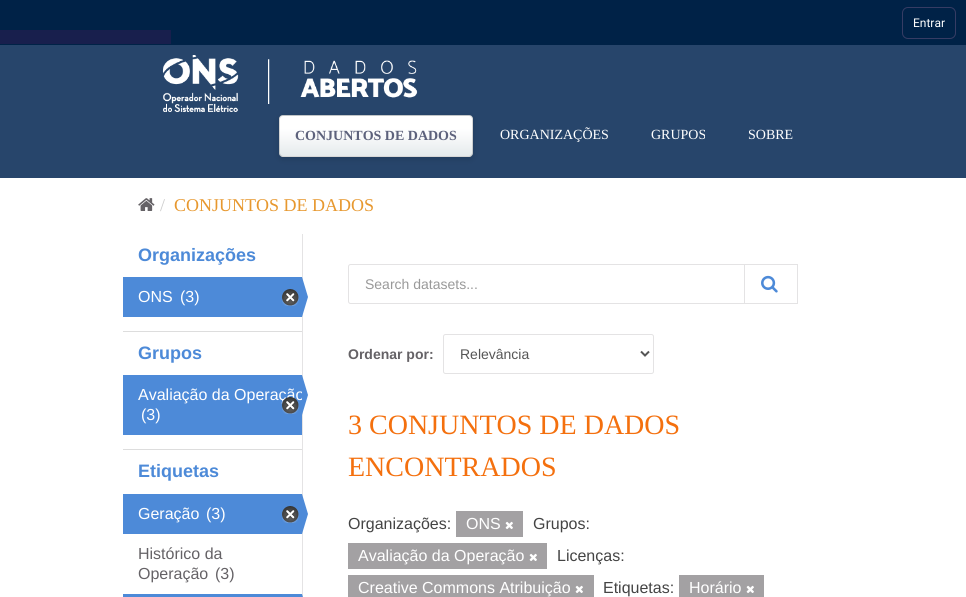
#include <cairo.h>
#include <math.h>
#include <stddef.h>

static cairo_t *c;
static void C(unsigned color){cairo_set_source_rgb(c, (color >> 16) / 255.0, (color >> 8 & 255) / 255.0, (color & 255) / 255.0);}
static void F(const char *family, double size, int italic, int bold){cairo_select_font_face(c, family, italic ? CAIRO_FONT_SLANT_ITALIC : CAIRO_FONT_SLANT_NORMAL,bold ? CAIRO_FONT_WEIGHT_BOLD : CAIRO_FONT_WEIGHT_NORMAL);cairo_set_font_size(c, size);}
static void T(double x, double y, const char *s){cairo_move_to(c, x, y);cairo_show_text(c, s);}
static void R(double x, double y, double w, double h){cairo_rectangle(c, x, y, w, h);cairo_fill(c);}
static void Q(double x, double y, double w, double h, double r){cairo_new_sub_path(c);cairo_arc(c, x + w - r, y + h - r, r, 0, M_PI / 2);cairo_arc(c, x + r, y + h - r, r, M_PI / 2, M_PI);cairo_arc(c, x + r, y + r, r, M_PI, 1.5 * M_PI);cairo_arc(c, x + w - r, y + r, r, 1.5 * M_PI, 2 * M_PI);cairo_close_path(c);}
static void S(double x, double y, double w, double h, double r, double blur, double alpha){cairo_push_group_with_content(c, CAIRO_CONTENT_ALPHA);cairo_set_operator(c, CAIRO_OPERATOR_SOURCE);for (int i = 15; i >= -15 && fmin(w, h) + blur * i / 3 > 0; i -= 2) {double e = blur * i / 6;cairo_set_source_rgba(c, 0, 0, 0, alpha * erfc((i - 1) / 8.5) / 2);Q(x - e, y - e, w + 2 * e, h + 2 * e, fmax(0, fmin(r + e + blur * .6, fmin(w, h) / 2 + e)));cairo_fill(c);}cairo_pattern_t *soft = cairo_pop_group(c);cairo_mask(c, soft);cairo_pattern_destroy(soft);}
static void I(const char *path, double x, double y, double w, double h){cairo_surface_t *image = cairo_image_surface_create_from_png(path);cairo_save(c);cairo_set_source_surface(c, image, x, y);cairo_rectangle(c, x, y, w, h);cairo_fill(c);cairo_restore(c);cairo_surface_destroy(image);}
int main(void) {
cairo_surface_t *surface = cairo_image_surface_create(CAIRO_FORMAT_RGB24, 966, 597);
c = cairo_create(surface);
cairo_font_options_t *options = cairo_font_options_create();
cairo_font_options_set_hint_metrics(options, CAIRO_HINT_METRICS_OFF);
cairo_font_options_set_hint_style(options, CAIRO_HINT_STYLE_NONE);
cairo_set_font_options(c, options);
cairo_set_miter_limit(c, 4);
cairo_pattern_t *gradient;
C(0xffffff);
cairo_paint(c);
C(0x002247);
R(0,0,966,45);
Q(902.5,7.5,53,31,5.5);
C(0x363c64);
cairo_set_line_width(c,1);
cairo_stroke(c);
F("Roboto",12,0,0);
C(0xffffff);
T(913,27,"Entrar");
C(0x181f4d);
R(0,30,171,14);
C(0x27456b);
R(0,45,966,133);
I("1.png",162,55,256,58);
C(0x000000);
S(279,117,194,42,4,3.5,.14);
cairo_save(c);
Q(279,115,194,42,4);
cairo_clip(c);
gradient = cairo_pattern_create_linear(376,76,376,116);
cairo_pattern_add_color_stop_rgba(gradient,.32,1,1,1,1);
cairo_pattern_add_color_stop_rgba(gradient,1,0.898,0.918,0.925,1);
cairo_set_source(c,gradient);
cairo_pattern_destroy(gradient);
R(279,115,194,1);
gradient = cairo_pattern_create_linear(376,116,376,156);
cairo_pattern_add_color_stop_rgba(gradient,.32,1,1,1,1);
cairo_pattern_add_color_stop_rgba(gradient,1,0.898,0.918,0.925,1);
cairo_set_source(c,gradient);
cairo_pattern_destroy(gradient);
R(279,116,194,40);
gradient = cairo_pattern_create_linear(376,156,376,196);
cairo_pattern_add_color_stop_rgba(gradient,.32,1,1,1,1);
cairo_pattern_add_color_stop_rgba(gradient,1,0.898,0.918,0.925,1);
cairo_set_source(c,gradient);
cairo_pattern_destroy(gradient);
R(279,156,194,1);
cairo_restore(c);
Q(279.5,115.5,193,41,3.5);
cairo_set_source_rgba(c,0,0,0,0.16);
cairo_stroke(c);
F("Liberation Serif",14,0,1);
C(0x5d627c);
T(295,140,"CONJUNTOS DE DADOS");
F("Liberation Serif",14,0,0);
C(0xffffff);
T(500,139,"ORGANIZAÇÕES");
T(651,139,"GRUPOS");
T(748,139,"SOBRE");
I("2.png",138,198,17,13);
F("Liberation Serif",18,0,0);
C(0xcccccc);
T(160,211,"/");
C(0xe7982f);
T(174,211,"CONJUNTOS DE DADOS");
C(0xe4e3e4);
R(302,234,1,363);
F("Liberation Sans",18,0,1);
C(0x4d8ad8);
T(138,261,"Organizações");
R(123,277,179,40);
F("Liberation Sans",16,0,0);
C(0xffffff);
T(138,302,"ONS");
T(180,302,"(3)");
I("3.png",282,289,17,17);
C(0x4d8ad8);
cairo_new_path(c);
cairo_move_to(c,302,317);
cairo_line_to(c,302,277);
cairo_line_to(c,308,297);
cairo_close_path(c);
cairo_fill(c);
C(0xdddddd);
R(123,331,179,1);
F("Liberation Sans",18,0,1);
C(0x4d8ad8);
T(138,359,"Grupos");
R(123,375,179,60);
F("Liberation Sans",16,0,0);
C(0xffffff);
T(138,400,"Avaliação da Operação");
C(0x4d8ad8);
cairo_new_path(c);
cairo_move_to(c,302,415);
cairo_line_to(c,302,375);
cairo_line_to(c,308,395);
cairo_close_path(c);
cairo_fill(c);
I("4.png",282,397,17,17);
C(0xffffff);
T(141,420,"(3)");
C(0xdddddd);
R(123,449,179,1);
F("Liberation Sans",18,0,1);
C(0x4d8ad8);
T(138,477,"Etiquetas");
R(123,494,179,40);
F("Liberation Sans",16,0,0);
C(0xffffff);
T(138,519,"Geração");
T(206,519,"(3)");
I("3.png",282,506,17,17);
C(0x4d8ad8);
cairo_new_path(c);
cairo_move_to(c,302,534);
cairo_line_to(c,302,494);
cairo_line_to(c,308,514);
cairo_close_path(c);
cairo_fill(c);
C(0x656266);
T(138,559,"Histórico da");
T(138,579,"Operação");
T(215,579,"(3)");
C(0x4d8ad8);
R(123,594,179,3);
cairo_new_path(c);
cairo_move_to(c,302,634);
cairo_line_to(c,302,594);
cairo_line_to(c,308,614);
cairo_close_path(c);
cairo_fill(c);
cairo_new_path(c);
cairo_move_to(c,350.5,264.5);
cairo_line_to(c,744.5,264.5);
cairo_line_to(c,744.5,303.5);
cairo_line_to(c,350.5,303.5);
cairo_curve_to(c,349.5,303.5,348.5,302.5,348.5,301.5);
cairo_line_to(c,348.5,266.5);
cairo_curve_to(c,348.5,265.5,349.5,264.5,350.5,264.5);
cairo_close_path(c);
C(0xe4e3e4);
cairo_stroke(c);
F("Liberation Sans",14,0,0);
C(0x999999);
T(365,289,"Search datasets...");
cairo_rectangle(c,744.5,264.5,53,39);
C(0xe4e3e4);
cairo_stroke(c);
I("5.png",761,275,17,18);
F("Liberation Sans",14,0,1);
C(0x656266);
T(348,359,"Ordenar por:");
Q(443.5,334.5,210,39,2);
C(0xe4e3e4);
cairo_stroke(c);
cairo_new_path(c);
cairo_move_to(c,641,351.5);
cairo_line_to(c,645,355.5);
cairo_line_to(c,649,351.5);
C(0x555555);
cairo_set_line_width(c,2);
cairo_stroke(c);
F("Liberation Sans",14,0,0);
T(460,359,"Relevância");
F("Liberation Serif",28,0,0);
C(0xf4700e);
T(348,434,"3 CONJUNTOS DE DADOS");
T(348,476,"ENCONTRADOS");
F("Liberation Sans",16,0,0);
C(0x444444);
T(348,529,"Organizações:");
C(0xa3a1a3);
R(456,511,67,26);
C(0xffffff);
T(466,529,"ONS");
I("6.png",505,521,8,8);
C(0x444444);
T(533,529,"Grupos:");
C(0xa3a1a3);
R(348,543,199,26);
C(0xffffff);
T(358,561,"Avaliação da Operação");
I("6.png",529,553,8,8);
C(0x444444);
T(557,561,"Licenças:");
C(0xa3a1a3);
R(348,575,246,22);
C(0xffffff);
T(358,593,"Creative Commons Atribuição");
I("6.png",575,585,8,8);
C(0x444444);
T(603,593,"Etiquetas:");
C(0xa3a1a3);
R(679,575,85,22);
C(0xffffff);
T(689,593,"Horário");
I("6.png",746,585,8,8);
cairo_surface_write_to_png(surface, "o.png");
cairo_font_options_destroy(options);
cairo_destroy(c);
cairo_surface_destroy(surface);
return 0;
}
